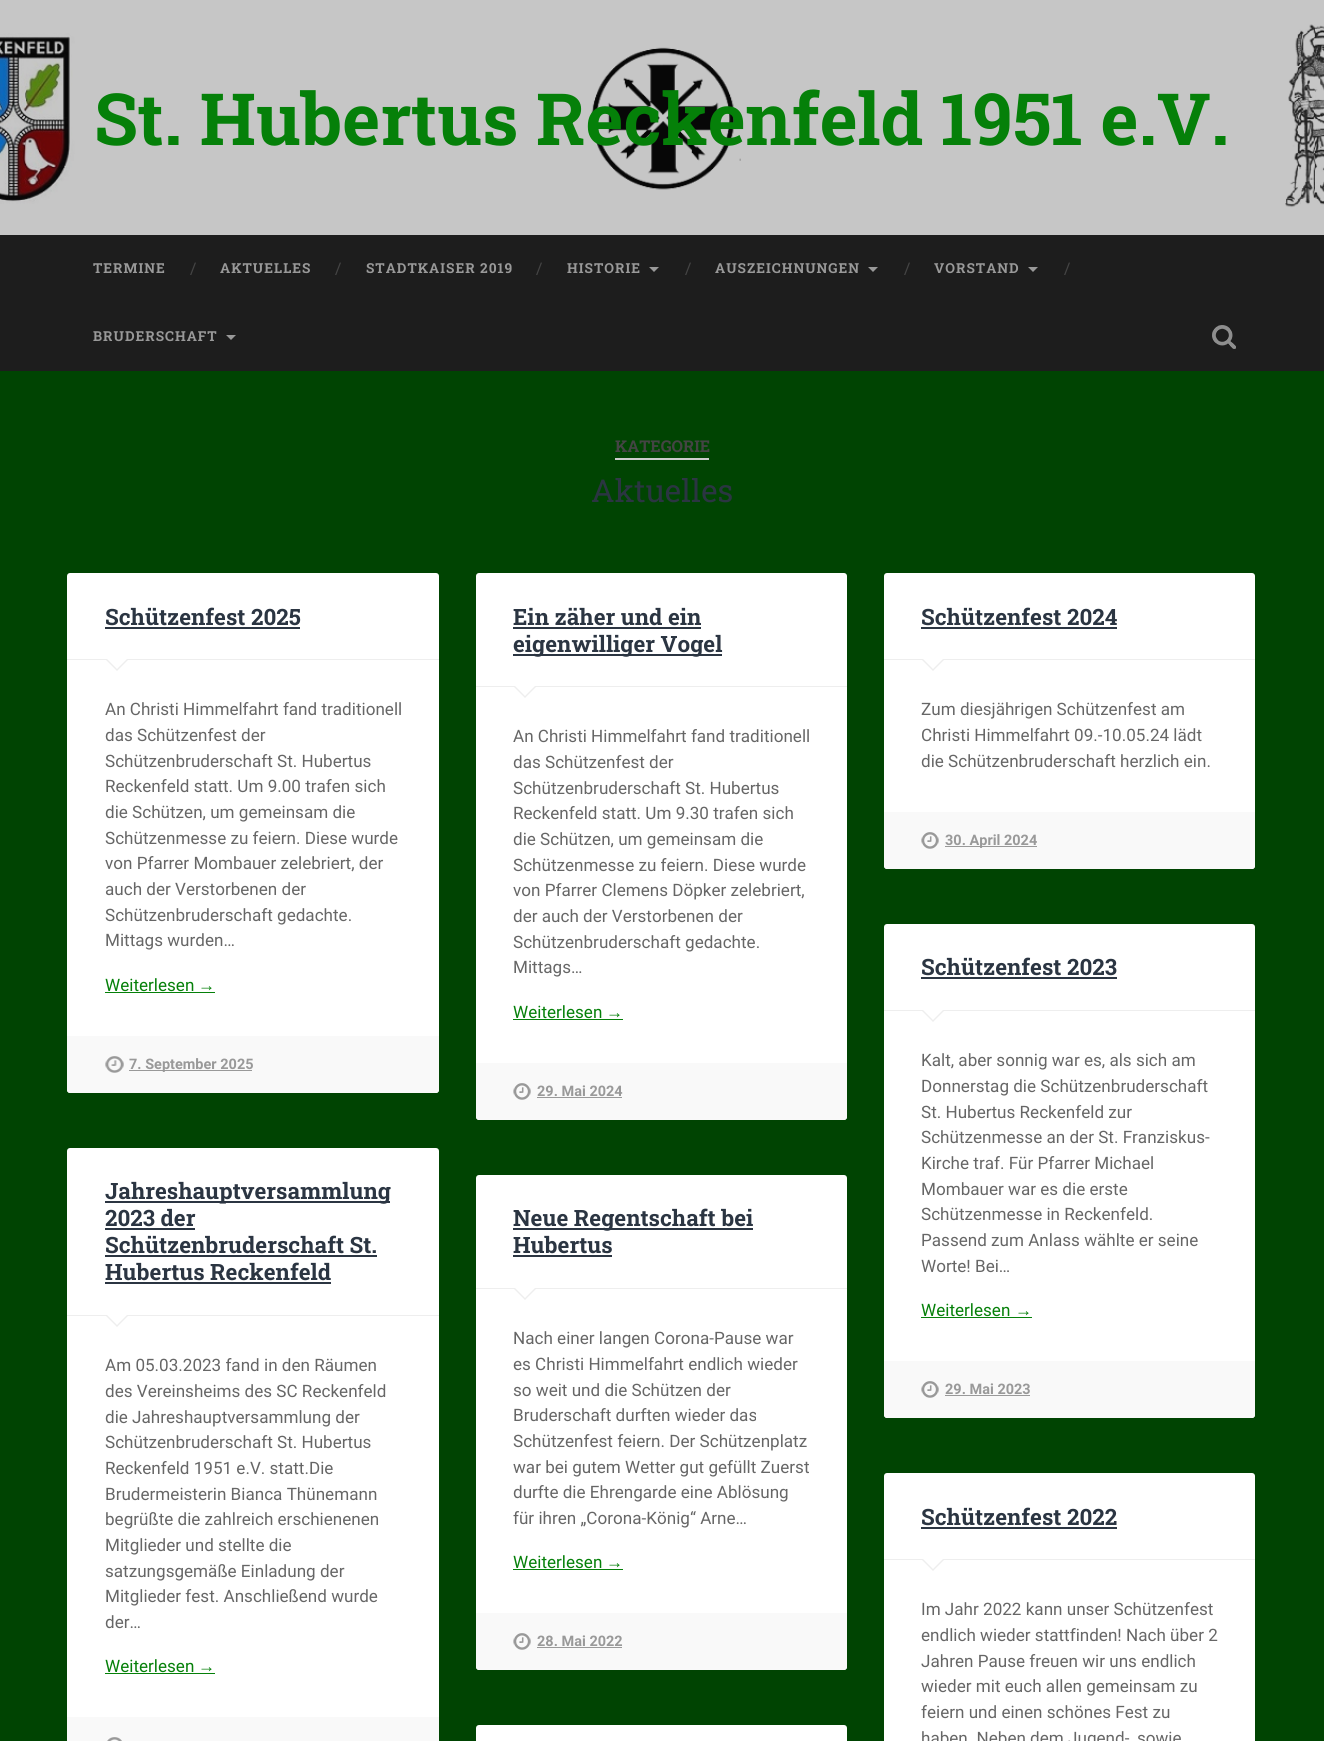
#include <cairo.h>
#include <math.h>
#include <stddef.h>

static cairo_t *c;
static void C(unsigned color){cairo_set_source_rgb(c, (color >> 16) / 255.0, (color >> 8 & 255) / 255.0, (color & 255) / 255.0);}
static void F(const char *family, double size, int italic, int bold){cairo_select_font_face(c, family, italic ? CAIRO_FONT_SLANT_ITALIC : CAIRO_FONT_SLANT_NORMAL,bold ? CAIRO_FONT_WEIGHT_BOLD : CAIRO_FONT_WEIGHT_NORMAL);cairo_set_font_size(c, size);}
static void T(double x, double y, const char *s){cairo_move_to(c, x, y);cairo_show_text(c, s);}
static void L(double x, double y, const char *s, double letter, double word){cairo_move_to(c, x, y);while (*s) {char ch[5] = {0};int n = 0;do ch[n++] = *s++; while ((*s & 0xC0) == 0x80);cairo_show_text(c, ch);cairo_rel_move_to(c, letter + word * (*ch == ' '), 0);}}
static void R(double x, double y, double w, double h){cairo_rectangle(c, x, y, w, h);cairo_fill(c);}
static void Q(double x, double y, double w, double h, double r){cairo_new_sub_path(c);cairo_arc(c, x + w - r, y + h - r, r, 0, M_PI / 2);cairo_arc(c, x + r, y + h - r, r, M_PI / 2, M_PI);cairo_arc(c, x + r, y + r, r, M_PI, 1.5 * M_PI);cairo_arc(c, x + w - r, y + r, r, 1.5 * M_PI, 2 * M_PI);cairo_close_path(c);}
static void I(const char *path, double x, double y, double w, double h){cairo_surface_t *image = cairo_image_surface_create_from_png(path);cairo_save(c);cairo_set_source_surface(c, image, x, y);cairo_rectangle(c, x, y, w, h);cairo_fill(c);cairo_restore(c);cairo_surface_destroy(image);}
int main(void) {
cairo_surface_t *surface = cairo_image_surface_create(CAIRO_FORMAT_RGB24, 1324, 1741);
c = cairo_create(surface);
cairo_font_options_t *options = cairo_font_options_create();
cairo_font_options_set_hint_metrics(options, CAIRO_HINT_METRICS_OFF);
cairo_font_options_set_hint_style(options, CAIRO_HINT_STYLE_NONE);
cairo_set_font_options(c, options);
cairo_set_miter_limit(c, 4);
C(0x004402);
cairo_paint(c);
I("1.png",0,0,1324,235);
F("Roboto Slab",72,0,1);
C(0x058009);
T(94,145,"St. Hubertus Reckenfeld 1951 e.V.");
C(0x1d1d1d);
R(0,235,1324,136);
F("Roboto Slab",13.75,0,1);
C(0x999999);
L(93,273,"TERMINE",1,0);
F("Roboto Slab",16,0,0);
C(0x444444);
T(190,274,"/");
F("Roboto Slab",13.75,0,1);
C(0x999999);
L(220,273,"AKTUELLES",1,0);
F("Roboto Slab",16,0,0);
C(0x444444);
T(335,274,"/");
F("Roboto Slab",13.75,0,1);
C(0x999999);
L(366,273,"STADTKAISER 2019",1,0);
F("Roboto Slab",16,0,0);
C(0x444444);
T(536,274,"/");
F("Roboto Slab",13.75,0,1);
C(0x999999);
L(567,273,"HISTORIE",1,0);
cairo_new_path(c);
cairo_move_to(c,649,267);
cairo_line_to(c,659,267);
cairo_line_to(c,654,272);
cairo_close_path(c);
cairo_fill(c);
F("Roboto Slab",16,0,0);
C(0x444444);
T(685,274,"/");
F("Roboto Slab",13.75,0,1);
C(0x999999);
L(715,273,"AUSZEICHNUNGEN",1,0);
cairo_new_path(c);
cairo_move_to(c,868,267);
cairo_line_to(c,878,267);
cairo_line_to(c,873,272);
cairo_close_path(c);
cairo_fill(c);
F("Roboto Slab",16,0,0);
C(0x444444);
T(904,274,"/");
F("Roboto Slab",13.75,0,1);
C(0x999999);
L(934,273,"VORSTAND",1,0);
cairo_new_path(c);
cairo_move_to(c,1028,267);
cairo_line_to(c,1038,267);
cairo_line_to(c,1033,272);
cairo_close_path(c);
cairo_fill(c);
F("Roboto Slab",16,0,0);
C(0x444444);
T(1064,274,"/");
F("Roboto Slab",13.75,0,1);
C(0x999999);
L(93,341,"BRUDERSCHAFT",1,0);
cairo_new_path(c);
cairo_move_to(c,226,335);
cairo_line_to(c,236,335);
cairo_line_to(c,231,340);
cairo_close_path(c);
cairo_fill(c);
I("2.png",1212,325,24,24);
C(0xcccccc);
R(615,458,94,2);
F("Roboto Slab",16.25,0,1);
C(0x444444);
T(615,452,"KATEGORIE");
F("Roboto Slab",31.5,0,0);
C(0x2b3542);
T(591,502,"Aktuelles");
C(0xffffff);
Q(67,573,372,520,3);
cairo_fill(c);
C(0xeeeeee);
R(67,659,372,1);
F("Roboto Slab",22.5,0,1);
C(0x2b3542);
T(105,625,"Schützenfest 2025");
R(105,627,195,2);
C(0xeeeeee);
cairo_new_path(c);
cairo_move_to(c,105,659);
cairo_line_to(c,129,659);
cairo_line_to(c,117,671);
cairo_close_path(c);
cairo_fill(c);
C(0xffffff);
cairo_new_path(c);
cairo_move_to(c,106,658);
cairo_line_to(c,128,658);
cairo_line_to(c,117,669);
cairo_close_path(c);
cairo_fill(c);
F("Roboto",17.1,0,0);
C(0x666666);
T(105,715,"An Christi Himmelfahrt fand traditionell");
T(105,741,"das Schützenfest der");
T(105,767,"Schützenbruderschaft St. Hubertus");
T(105,792,"Reckenfeld statt. Um 9.00 trafen sich");
T(105,818,"die Schützen, um gemeinsam die");
T(105,844,"Schützenmesse zu feiern. Diese wurde");
T(105,869,"von Pfarrer Mombauer zelebriert, der");
T(105,895,"auch der Verstorbenen der");
T(105,921,"Schützenbruderschaft gedachte.");
T(105,946,"Mittags wurden…");
C(0x058009);
T(105,991,"Weiterlesen");
F("Liberation Sans",17.1,0,0);
T(198,991,"→");
R(105,992,110,1);
C(0xf9f9f9);
cairo_new_path(c);
cairo_move_to(c,67,1036);
cairo_line_to(c,439,1036);
cairo_line_to(c,439,1090);
cairo_curve_to(c,439,1091.5,437.5,1093,436,1093);
cairo_line_to(c,70,1093);
cairo_curve_to(c,68.5,1093,67,1091.5,67,1090);
cairo_close_path(c);
cairo_fill(c);
I("3.png",105,1056,19,17);
C(0x999999);
R(129,1070,123,1);
F("Roboto",14.5,0,1);
T(129,1069,"7. September 2025");
C(0xffffff);
Q(476,573,371,547,3);
cairo_fill(c);
C(0xeeeeee);
R(476,686,371,1);
F("Roboto Slab",22.5,0,1);
C(0x2b3542);
T(513,625,"Ein zäher und ein");
R(513,627,188,2);
R(513,654,209,2);
T(513,652,"eigenwilliger Vogel");
C(0xeeeeee);
cairo_new_path(c);
cairo_move_to(c,513,686);
cairo_line_to(c,537,686);
cairo_line_to(c,525,698);
cairo_close_path(c);
cairo_fill(c);
C(0xffffff);
cairo_new_path(c);
cairo_move_to(c,514,685);
cairo_line_to(c,536,685);
cairo_line_to(c,525,696);
cairo_close_path(c);
cairo_fill(c);
F("Roboto",17.1,0,0);
C(0x666666);
T(513,742,"An Christi Himmelfahrt fand traditionell");
T(513,768,"das Schützenfest der");
T(513,794,"Schützenbruderschaft St. Hubertus");
T(513,819,"Reckenfeld statt. Um 9.30 trafen sich");
T(513,845,"die Schützen, um gemeinsam die");
T(513,871,"Schützenmesse zu feiern. Diese wurde");
T(513,896,"von Pfarrer Clemens Döpker zelebriert,");
T(513,922,"der auch der Verstorbenen der");
T(513,948,"Schützenbruderschaft gedachte.");
T(513,973,"Mittags…");
C(0x058009);
T(513,1018,"Weiterlesen");
F("Liberation Sans",17.1,0,0);
T(606,1018,"→");
R(513,1019,110,1);
C(0xf9f9f9);
cairo_new_path(c);
cairo_move_to(c,476,1063);
cairo_line_to(c,847,1063);
cairo_line_to(c,847,1117);
cairo_curve_to(c,847,1118.5,845.5,1120,844,1120);
cairo_line_to(c,479,1120);
cairo_curve_to(c,477.5,1120,476,1118.5,476,1117);
cairo_close_path(c);
cairo_fill(c);
I("4.png",513,1083,18,17);
F("Roboto",14.5,0,1);
C(0x999999);
T(537,1096,"29. Mai 2024");
R(537,1097,85,1);
C(0xffffff);
Q(884,573,371,296,3);
cairo_fill(c);
C(0xeeeeee);
R(884,659,371,1);
F("Roboto Slab",22.5,0,1);
C(0x2b3542);
T(921,625,"Schützenfest 2024");
R(921,627,196,2);
C(0xeeeeee);
cairo_new_path(c);
cairo_move_to(c,921,659);
cairo_line_to(c,945,659);
cairo_line_to(c,933,671);
cairo_close_path(c);
cairo_fill(c);
C(0xffffff);
cairo_new_path(c);
cairo_move_to(c,922,658);
cairo_line_to(c,944,658);
cairo_line_to(c,933,669);
cairo_close_path(c);
cairo_fill(c);
F("Roboto",17.1,0,0);
C(0x666666);
T(921,715,"Zum diesjährigen Schützenfest am");
T(921,741,"Christi Himmelfahrt 09.-10.05.24 lädt");
T(921,767,"die Schützenbruderschaft herzlich ein.");
C(0xf9f9f9);
cairo_new_path(c);
cairo_move_to(c,884,812);
cairo_line_to(c,1255,812);
cairo_line_to(c,1255,866);
cairo_curve_to(c,1255,867.5,1253.5,869,1252,869);
cairo_line_to(c,887,869);
cairo_curve_to(c,885.5,869,884,867.5,884,866);
cairo_close_path(c);
cairo_fill(c);
I("4.png",921,832,18,17);
C(0x999999);
R(945,846,92,1);
F("Roboto",14.5,0,1);
T(945,845,"30. April 2024");
C(0xffffff);
Q(67,1148,372,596,3);
cairo_fill(c);
C(0xeeeeee);
R(67,1315,372,1);
C(0x2b3542);
R(105,1201,285,2);
F("Roboto Slab",22.5,0,1);
T(105,1199,"Jahreshauptversammlung");
T(105,1226,"2023 der");
R(105,1228,90,2);
T(105,1253,"Schützenbruderschaft St.");
R(105,1255,272,2);
T(105,1280,"Hubertus Reckenfeld");
R(105,1282,226,2);
C(0xeeeeee);
cairo_new_path(c);
cairo_move_to(c,105,1315);
cairo_line_to(c,129,1315);
cairo_line_to(c,117,1327);
cairo_close_path(c);
cairo_fill(c);
C(0xffffff);
cairo_new_path(c);
cairo_move_to(c,106,1314);
cairo_line_to(c,128,1314);
cairo_line_to(c,117,1325);
cairo_close_path(c);
cairo_fill(c);
F("Roboto",17.1,0,0);
C(0x666666);
T(105,1371,"Am 05.03.2023 fand in den Räumen");
T(105,1397,"des Vereinsheims des SC Reckenfeld");
T(105,1423,"die Jahreshauptversammlung der");
T(105,1448,"Schützenbruderschaft St. Hubertus");
T(105,1474,"Reckenfeld 1951 e.V. statt.Die");
T(105,1500,"Brudermeisterin Bianca Thünemann");
T(105,1525,"begrüßte die zahlreich erschienenen");
T(105,1551,"Mitglieder und stellte die");
T(105,1577,"satzungsgemäße Einladung der");
T(105,1602,"Mitglieder fest. Anschließend wurde");
T(105,1628,"der…");
C(0x058009);
T(105,1672,"Weiterlesen");
F("Liberation Sans",17.1,0,0);
T(198,1672,"→");
R(105,1673,110,1);
C(0xf9f9f9);
R(67,1717,372,24);
I("5.png",107,1737,15,4);
C(0xffffff);
Q(476,1175,371,495,3);
cairo_fill(c);
C(0xeeeeee);
R(476,1288,371,1);
C(0x2b3542);
R(513,1228,240,2);
F("Roboto Slab",22.5,0,1);
T(513,1226,"Neue Regentschaft bei");
T(513,1253,"Hubertus");
R(513,1255,99,2);
C(0xeeeeee);
cairo_new_path(c);
cairo_move_to(c,513,1288);
cairo_line_to(c,537,1288);
cairo_line_to(c,525,1300);
cairo_close_path(c);
cairo_fill(c);
C(0xffffff);
cairo_new_path(c);
cairo_move_to(c,514,1287);
cairo_line_to(c,536,1287);
cairo_line_to(c,525,1298);
cairo_close_path(c);
cairo_fill(c);
F("Roboto",17.1,0,0);
C(0x666666);
T(513,1344,"Nach einer langen Corona-Pause war");
T(513,1370,"es Christi Himmelfahrt endlich wieder");
T(513,1396,"so weit und die Schützen der");
T(513,1421,"Bruderschaft durften wieder das");
T(513,1447,"Schützenfest feiern. Der Schützenplatz");
T(513,1473,"war bei gutem Wetter gut gefüllt Zuerst");
T(513,1498,"durfte die Ehrengarde eine Ablösung");
T(513,1524,"für ihren „Corona-König“ Arne…");
C(0x058009);
T(513,1568,"Weiterlesen");
F("Liberation Sans",17.1,0,0);
T(606,1568,"→");
R(513,1569,110,1);
C(0xf9f9f9);
cairo_new_path(c);
cairo_move_to(c,476,1613);
cairo_line_to(c,847,1613);
cairo_line_to(c,847,1667);
cairo_curve_to(c,847,1668.5,845.5,1670,844,1670);
cairo_line_to(c,479,1670);
cairo_curve_to(c,477.5,1670,476,1668.5,476,1667);
cairo_close_path(c);
cairo_fill(c);
I("4.png",513,1633,18,17);
F("Roboto",14.5,0,1);
C(0x999999);
T(537,1646,"28. Mai 2022");
R(537,1647,85,1);
C(0xffffff);
Q(884,924,371,494,3);
cairo_fill(c);
C(0xeeeeee);
R(884,1010,371,1);
F("Roboto Slab",22.5,0,1);
C(0x2b3542);
T(921,975,"Schützenfest 2023");
R(921,977,196,2);
C(0xeeeeee);
cairo_new_path(c);
cairo_move_to(c,921,1010);
cairo_line_to(c,945,1010);
cairo_line_to(c,933,1022);
cairo_close_path(c);
cairo_fill(c);
C(0xffffff);
cairo_new_path(c);
cairo_move_to(c,922,1009);
cairo_line_to(c,944,1009);
cairo_line_to(c,933,1020);
cairo_close_path(c);
cairo_fill(c);
F("Roboto",17.1,0,0);
C(0x666666);
T(921,1066,"Kalt, aber sonnig war es, als sich am");
T(921,1092,"Donnerstag die Schützenbruderschaft");
T(921,1118,"St. Hubertus Reckenfeld zur");
T(921,1143,"Schützenmesse an der St. Franziskus-");
T(921,1169,"Kirche traf. Für Pfarrer Michael");
T(921,1195,"Mombauer war es die erste");
T(921,1220,"Schützenmesse in Reckenfeld.");
T(921,1246,"Passend zum Anlass wählte er seine");
T(921,1272,"Worte! Bei…");
C(0x058009);
T(921,1316,"Weiterlesen");
F("Liberation Sans",17.1,0,0);
T(1015,1316,"→");
R(921,1317,111,1);
C(0xf9f9f9);
cairo_new_path(c);
cairo_move_to(c,884,1361);
cairo_line_to(c,1255,1361);
cairo_line_to(c,1255,1415);
cairo_curve_to(c,1255,1416.5,1253.5,1418,1252,1418);
cairo_line_to(c,887,1418);
cairo_curve_to(c,885.5,1418,884,1416.5,884,1415);
cairo_close_path(c);
cairo_fill(c);
I("4.png",921,1381,18,17);
F("Roboto",14.5,0,1);
C(0x999999);
T(945,1394,"29. Mai 2023");
R(945,1395,85,1);
C(0xffffff);
Q(476,1725,371,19,3);
cairo_fill(c);
Q(884,1473,371,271,3);
cairo_fill(c);
C(0xeeeeee);
R(884,1559,371,1);
F("Roboto Slab",22.5,0,1);
C(0x2b3542);
T(921,1525,"Schützenfest 2022");
R(921,1527,196,2);
C(0xeeeeee);
cairo_new_path(c);
cairo_move_to(c,921,1559);
cairo_line_to(c,945,1559);
cairo_line_to(c,933,1571);
cairo_close_path(c);
cairo_fill(c);
C(0xffffff);
cairo_new_path(c);
cairo_move_to(c,922,1558);
cairo_line_to(c,944,1558);
cairo_line_to(c,933,1569);
cairo_close_path(c);
cairo_fill(c);
F("Roboto",17.1,0,0);
C(0x666666);
T(921,1615,"Im Jahr 2022 kann unser Schützenfest");
T(921,1641,"endlich wieder stattfinden! Nach über 2");
T(921,1667,"Jahren Pause freuen wir uns endlich");
T(921,1692,"wieder mit euch allen gemeinsam zu");
T(921,1718,"feiern und einen schönes Fest zu");
T(921,1744,"haben. Neben dem Jugend-, sowie");
cairo_surface_write_to_png(surface, "o.png");
cairo_font_options_destroy(options);
cairo_destroy(c);
cairo_surface_destroy(surface);
return 0;
}
